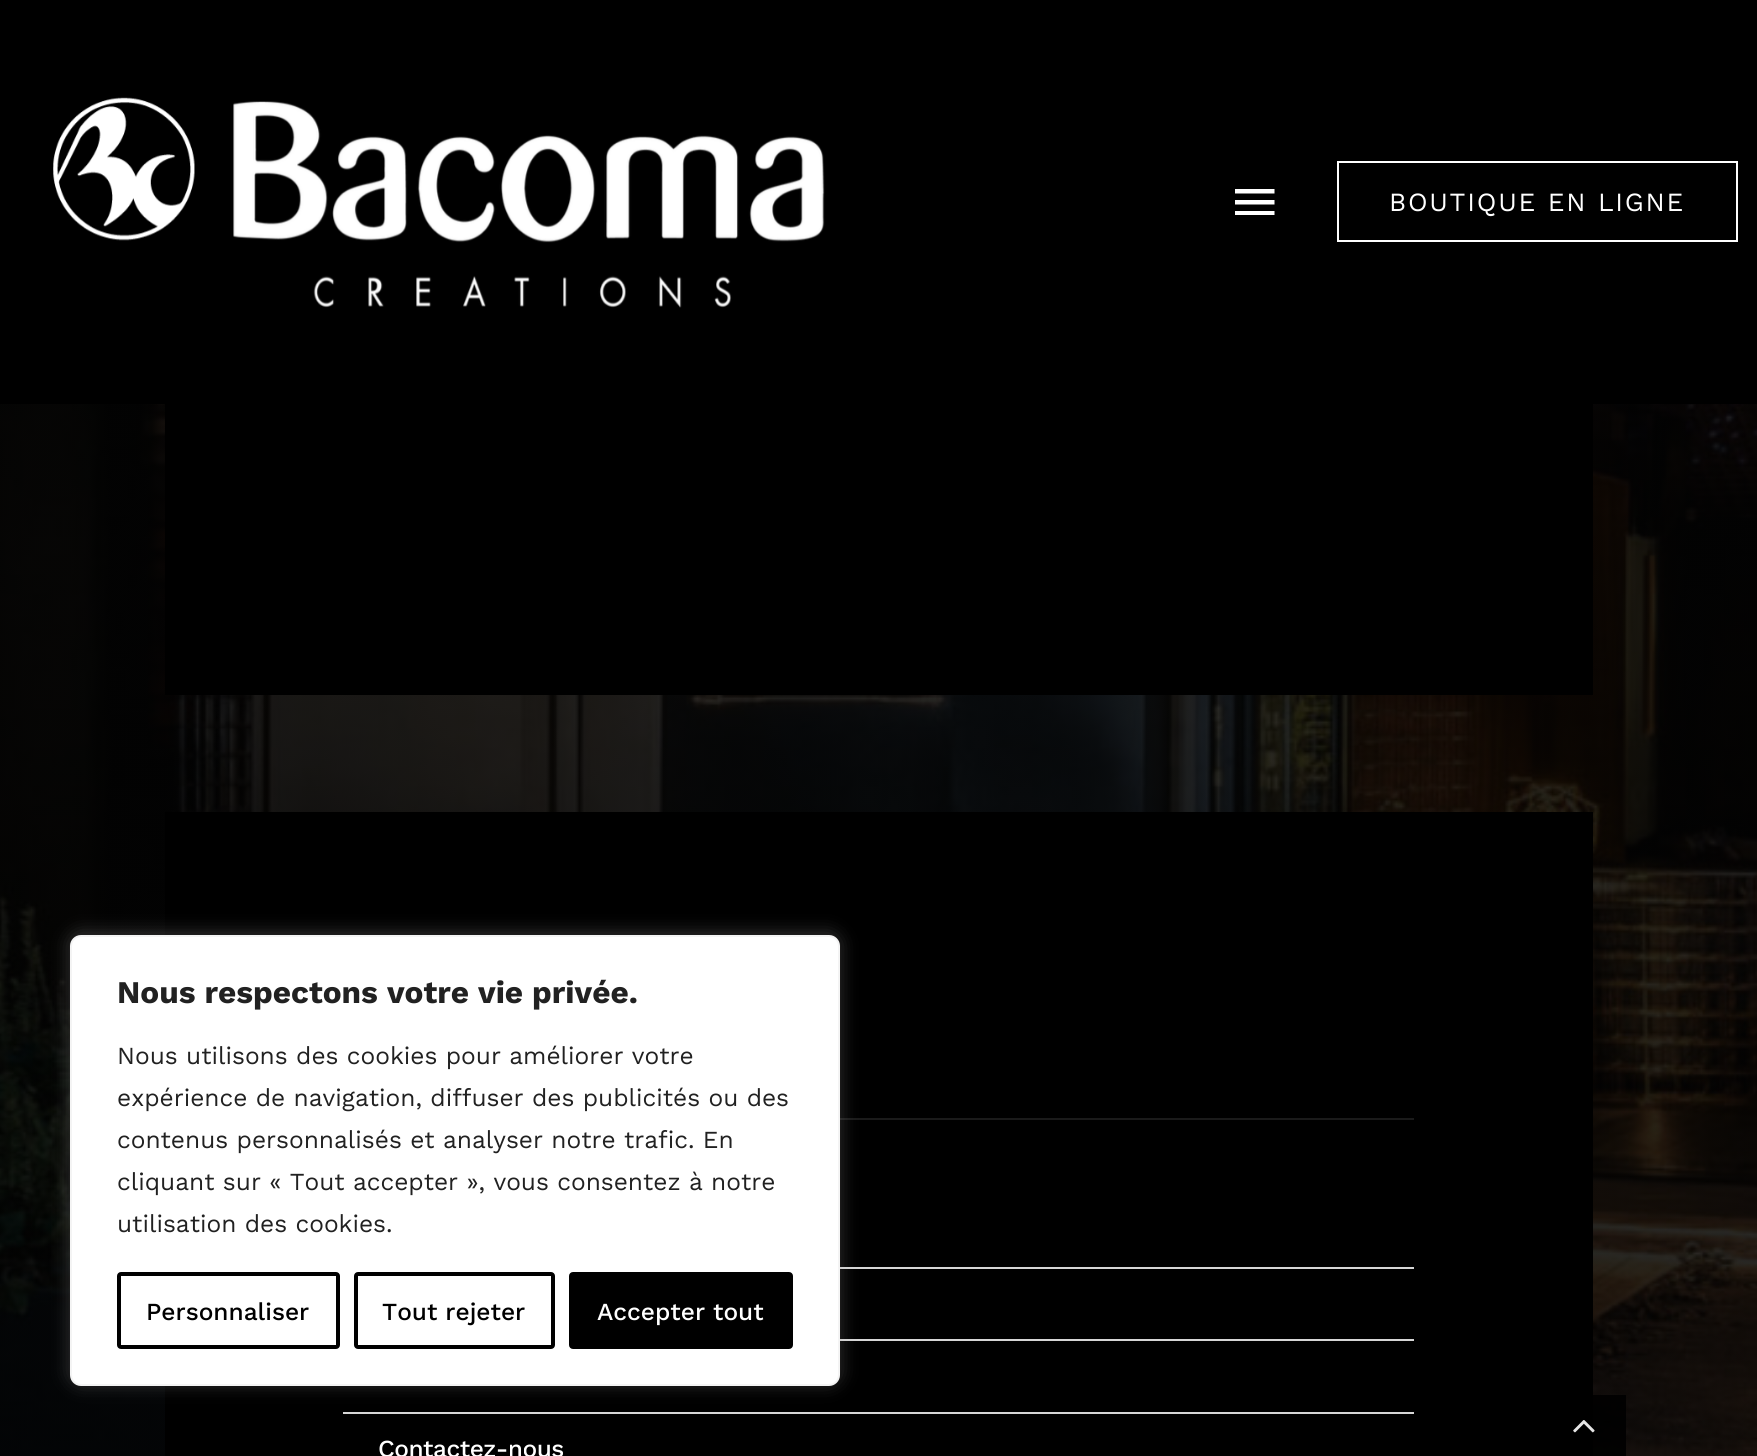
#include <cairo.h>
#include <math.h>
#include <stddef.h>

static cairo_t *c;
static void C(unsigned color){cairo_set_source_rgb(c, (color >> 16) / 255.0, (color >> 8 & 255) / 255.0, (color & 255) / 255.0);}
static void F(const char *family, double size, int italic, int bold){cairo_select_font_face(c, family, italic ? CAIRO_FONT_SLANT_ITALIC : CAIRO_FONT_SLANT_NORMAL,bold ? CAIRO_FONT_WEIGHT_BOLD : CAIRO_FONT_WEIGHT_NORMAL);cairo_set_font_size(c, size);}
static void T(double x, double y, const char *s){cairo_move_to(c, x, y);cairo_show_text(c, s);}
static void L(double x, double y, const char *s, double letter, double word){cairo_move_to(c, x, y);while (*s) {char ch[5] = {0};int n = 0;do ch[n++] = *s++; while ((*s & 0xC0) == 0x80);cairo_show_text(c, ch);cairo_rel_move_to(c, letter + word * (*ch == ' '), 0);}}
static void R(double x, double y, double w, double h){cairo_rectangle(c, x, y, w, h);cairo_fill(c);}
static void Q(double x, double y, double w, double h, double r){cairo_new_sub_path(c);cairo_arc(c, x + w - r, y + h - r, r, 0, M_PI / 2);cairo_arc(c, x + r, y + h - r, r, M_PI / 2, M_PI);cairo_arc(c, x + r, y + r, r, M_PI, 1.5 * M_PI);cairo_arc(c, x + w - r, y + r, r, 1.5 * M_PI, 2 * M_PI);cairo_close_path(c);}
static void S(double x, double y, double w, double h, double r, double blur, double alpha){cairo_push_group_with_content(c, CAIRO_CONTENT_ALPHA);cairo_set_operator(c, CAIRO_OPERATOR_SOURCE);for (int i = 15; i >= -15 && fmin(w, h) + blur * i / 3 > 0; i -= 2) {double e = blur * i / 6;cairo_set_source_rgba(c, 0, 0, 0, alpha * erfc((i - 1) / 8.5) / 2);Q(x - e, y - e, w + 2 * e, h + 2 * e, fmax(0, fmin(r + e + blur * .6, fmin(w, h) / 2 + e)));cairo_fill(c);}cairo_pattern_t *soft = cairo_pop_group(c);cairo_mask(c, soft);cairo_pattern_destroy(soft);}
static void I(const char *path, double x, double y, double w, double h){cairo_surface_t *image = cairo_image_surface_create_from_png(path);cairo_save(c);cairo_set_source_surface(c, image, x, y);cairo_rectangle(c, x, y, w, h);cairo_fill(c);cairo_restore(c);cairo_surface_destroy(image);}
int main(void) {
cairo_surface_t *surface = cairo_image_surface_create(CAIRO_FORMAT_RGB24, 1757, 1456);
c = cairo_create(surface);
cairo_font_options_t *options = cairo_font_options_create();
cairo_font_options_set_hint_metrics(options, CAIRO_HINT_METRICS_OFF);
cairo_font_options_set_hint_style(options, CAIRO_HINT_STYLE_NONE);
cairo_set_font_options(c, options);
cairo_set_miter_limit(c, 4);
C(0xffffff);
cairo_paint(c);
C(0x000000);
R(0,0,1757,404);
I("1.png",53,97,772,211);
C(0xffffff);
cairo_new_path(c);
cairo_move_to(c,1235,189);
cairo_line_to(c,1274.5,189);
cairo_line_to(c,1274.5,193.5);
cairo_line_to(c,1235,193.5);
cairo_close_path(c);
cairo_move_to(c,1235,204.5);
cairo_line_to(c,1235,200);
cairo_line_to(c,1274.5,200);
cairo_line_to(c,1274.5,204.5);
cairo_close_path(c);
cairo_move_to(c,1235,215);
cairo_line_to(c,1235,211);
cairo_line_to(c,1274.5,211);
cairo_line_to(c,1274.5,215);
cairo_close_path(c);
cairo_fill(c);
cairo_rectangle(c,1338,162,399,79);
cairo_stroke(c);
F("Work Sans",26.25,0,0);
L(1389,211,"BOUTIQUE EN LIGNE",1.75,0);
I("2.png",0,404,1757,1052);
C(0x000000);
R(165,404,1428,291);
R(165,812,1428,644);
C(0x1a1a1a);
R(840,1118,574,2);
C(0xd6d6d6);
R(840,1267,574,2);
R(840,1339,574,2);
R(343,1412,1071,2);
F("Work Sans Medium",24.5,0,0);
C(0xffffff);
L(378,1457,"Contactez-nous",-.5,0);
C(0xacabab);
S(70,933,770,451,11,9,.3);
C(0xffffff);
Q(71,936,768,449,10);
cairo_fill_preserve(c);
C(0xf4f4f4);
cairo_stroke(c);
F("Work Sans",31.5,0,1);
C(0x212121);
T(117,1003,"Nous respectons votre vie privée.");
F("Work Sans",24.5,0,0);
T(117,1064,"Nous utilisons des cookies pour améliorer votre");
T(117,1106,"expérience de navigation, diffuser des publicités ou des");
T(117,1148,"contenus personnalisés et analyser notre trafic. En");
T(117,1190,"cliquant sur « Tout accepter », vous consentez à notre");
T(117,1232,"utilisation des cookies.");
Q(119,1274,219,73,2);
C(0x000000);
cairo_set_line_width(c,4);
cairo_stroke(c);
F("Work Sans Medium",24.5,0,0);
T(146,1320,"Personnaliser");
Q(356,1274,197,73,2);
cairo_stroke(c);
T(382,1320,"Tout rejeter");
Q(571,1274,220,73,2);
cairo_fill_preserve(c);
cairo_stroke(c);
C(0xffffff);
T(597,1320,"Accepter tout");
cairo_set_source_rgba(c,0,0,0,0.9);
R(1593,1395,33,61);
I("3.png",1573,1420,22,13);
cairo_surface_write_to_png(surface, "o.png");
cairo_font_options_destroy(options);
cairo_destroy(c);
cairo_surface_destroy(surface);
return 0;
}
